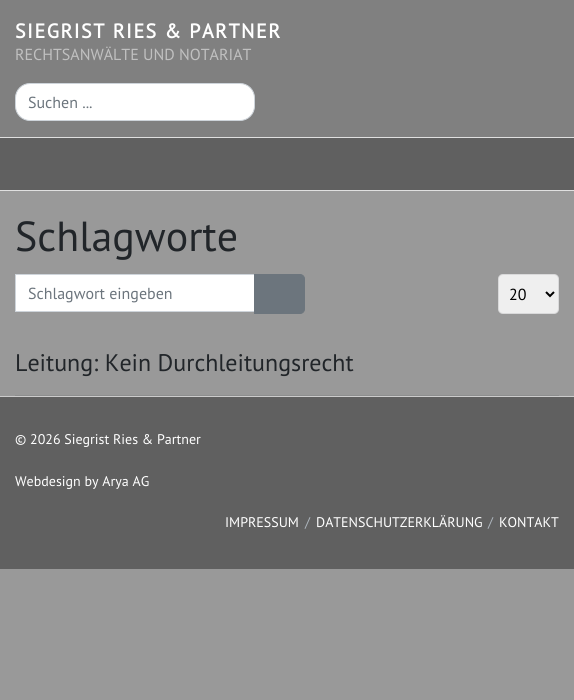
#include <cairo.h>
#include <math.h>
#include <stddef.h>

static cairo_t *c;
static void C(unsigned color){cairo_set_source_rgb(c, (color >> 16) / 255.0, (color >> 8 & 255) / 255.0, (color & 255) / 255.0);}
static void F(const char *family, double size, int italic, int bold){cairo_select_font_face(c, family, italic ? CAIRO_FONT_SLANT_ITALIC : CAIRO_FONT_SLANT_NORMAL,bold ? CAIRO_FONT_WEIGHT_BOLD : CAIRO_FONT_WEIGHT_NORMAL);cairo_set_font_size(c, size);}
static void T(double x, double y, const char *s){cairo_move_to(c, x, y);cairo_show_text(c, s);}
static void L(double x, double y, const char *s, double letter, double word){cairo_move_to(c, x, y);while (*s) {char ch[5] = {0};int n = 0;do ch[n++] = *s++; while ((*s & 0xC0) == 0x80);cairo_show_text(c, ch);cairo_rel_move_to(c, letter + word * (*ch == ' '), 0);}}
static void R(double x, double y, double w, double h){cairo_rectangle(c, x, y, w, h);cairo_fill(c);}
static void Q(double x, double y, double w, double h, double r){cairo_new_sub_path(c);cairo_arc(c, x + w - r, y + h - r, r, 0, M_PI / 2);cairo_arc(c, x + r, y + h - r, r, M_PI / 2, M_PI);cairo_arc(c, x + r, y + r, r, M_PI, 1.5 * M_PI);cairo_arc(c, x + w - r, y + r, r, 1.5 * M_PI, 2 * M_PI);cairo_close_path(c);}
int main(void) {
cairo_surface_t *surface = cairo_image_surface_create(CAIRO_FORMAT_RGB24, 574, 700);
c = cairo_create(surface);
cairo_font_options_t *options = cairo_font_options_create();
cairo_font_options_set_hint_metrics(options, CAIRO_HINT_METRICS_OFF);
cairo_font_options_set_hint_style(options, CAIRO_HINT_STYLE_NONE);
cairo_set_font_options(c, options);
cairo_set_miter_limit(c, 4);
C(0x999999);
cairo_paint(c);
C(0x808080);
R(0,0,574,137);
F("PT Sans",20,0,1);
C(0xffffff);
L(15,38,"SIEGRIST RIES & PARTNER",1.5,0);
F("PT Sans",16,0,0);
C(0xc0c0c0);
T(15,60,"RECHTSANWÄLTE UND NOTARIAT");
C(0xffffff);
Q(15.5,83.5,239,37,14.5);
cairo_fill_preserve(c);
C(0xced4da);
cairo_set_line_width(c,1);
cairo_stroke(c);
C(0x6c757d);
T(28,108,"Suchen ...");
C(0x606060);
R(0,138,574,52);
C(0xe0e0e0);
R(0,137,574,1);
R(0,190,574,1);
F("PT Sans",42,0,0);
C(0x212529);
T(15,251,"Schlagworte");
C(0xffffff);
cairo_rectangle(c,15.5,274.5,239,37);
cairo_fill_preserve(c);
C(0xced4da);
cairo_stroke(c);
F("PT Sans",16,0,0);
C(0x6c757d);
T(28,299,"Schlagwort eingeben");
R(254,274,25,40);
cairo_new_path(c);
cairo_move_to(c,279.5,274.5);
cairo_line_to(c,300,274.5);
cairo_curve_to(c,302.5,274.5,304.5,276.5,304.5,279);
cairo_line_to(c,304.5,309);
cairo_curve_to(c,304.5,311.5,302.5,313.5,300,313.5);
cairo_line_to(c,279.5,313.5);
cairo_close_path(c);
cairo_fill_preserve(c);
cairo_stroke(c);
C(0xefefef);
Q(498,274,61,40,5);
cairo_fill(c);
Q(498.5,274.5,60,39,4.5);
cairo_set_source_rgba(c,0.204,0.227,0.251,0.12);
cairo_stroke(c);
cairo_new_path(c);
cairo_move_to(c,546,292);
cairo_line_to(c,550,296);
cairo_line_to(c,554,292);
C(0x000000);
cairo_set_line_width(c,2);
cairo_stroke(c);
T(509,300,"20");
C(0x8d8e8e);
R(15,395,544,1);
F("PT Sans",24,0,0);
C(0x212529);
T(15,371,"Leitung: Kein Durchleitungsrecht");
C(0x606060);
R(0,397,574,172);
C(0xcccccc);
R(0,396,574,1);
F("PT Sans",14,0,0);
C(0xffffff);
T(15,444,"© 2026 Siegrist Ries & Partner");
T(15,486,"Webdesign by Arya AG");
T(225,527,"IMPRESSUM");
C(0xadb5bd);
T(305,527,"/");
C(0xffffff);
T(316,527,"DATENSCHUTZERKLÄRUNG");
C(0xadb5bd);
T(488,527,"/");
C(0xffffff);
T(499,527,"KONTAKT");
cairo_surface_write_to_png(surface, "o.png");
cairo_font_options_destroy(options);
cairo_destroy(c);
cairo_surface_destroy(surface);
return 0;
}
